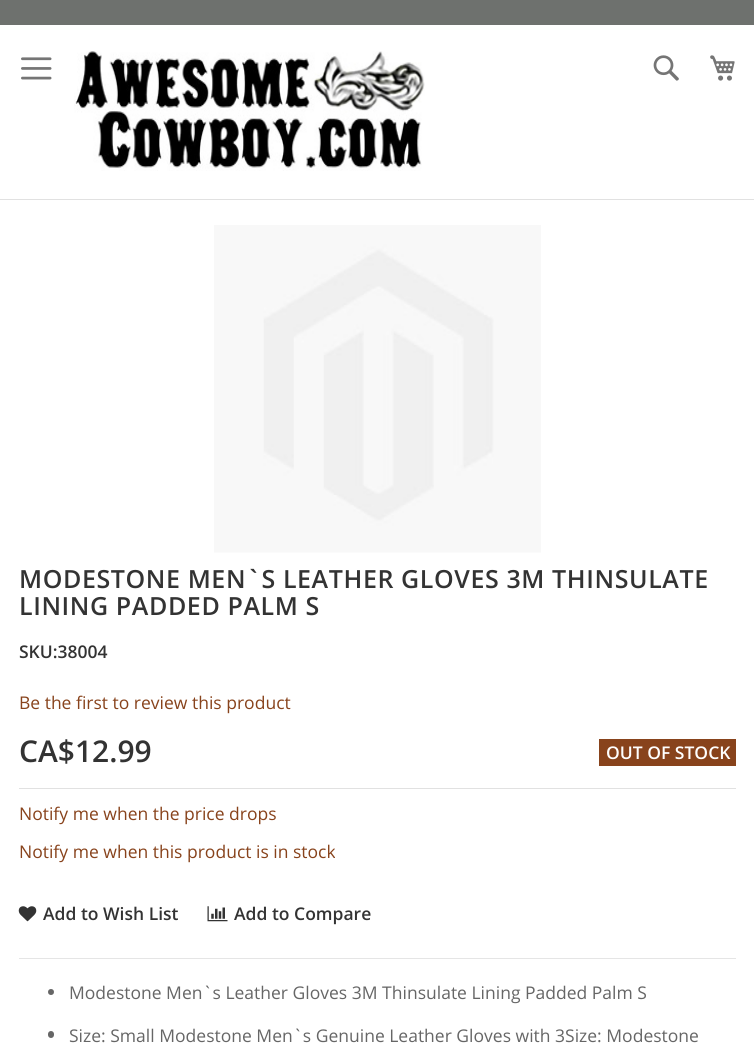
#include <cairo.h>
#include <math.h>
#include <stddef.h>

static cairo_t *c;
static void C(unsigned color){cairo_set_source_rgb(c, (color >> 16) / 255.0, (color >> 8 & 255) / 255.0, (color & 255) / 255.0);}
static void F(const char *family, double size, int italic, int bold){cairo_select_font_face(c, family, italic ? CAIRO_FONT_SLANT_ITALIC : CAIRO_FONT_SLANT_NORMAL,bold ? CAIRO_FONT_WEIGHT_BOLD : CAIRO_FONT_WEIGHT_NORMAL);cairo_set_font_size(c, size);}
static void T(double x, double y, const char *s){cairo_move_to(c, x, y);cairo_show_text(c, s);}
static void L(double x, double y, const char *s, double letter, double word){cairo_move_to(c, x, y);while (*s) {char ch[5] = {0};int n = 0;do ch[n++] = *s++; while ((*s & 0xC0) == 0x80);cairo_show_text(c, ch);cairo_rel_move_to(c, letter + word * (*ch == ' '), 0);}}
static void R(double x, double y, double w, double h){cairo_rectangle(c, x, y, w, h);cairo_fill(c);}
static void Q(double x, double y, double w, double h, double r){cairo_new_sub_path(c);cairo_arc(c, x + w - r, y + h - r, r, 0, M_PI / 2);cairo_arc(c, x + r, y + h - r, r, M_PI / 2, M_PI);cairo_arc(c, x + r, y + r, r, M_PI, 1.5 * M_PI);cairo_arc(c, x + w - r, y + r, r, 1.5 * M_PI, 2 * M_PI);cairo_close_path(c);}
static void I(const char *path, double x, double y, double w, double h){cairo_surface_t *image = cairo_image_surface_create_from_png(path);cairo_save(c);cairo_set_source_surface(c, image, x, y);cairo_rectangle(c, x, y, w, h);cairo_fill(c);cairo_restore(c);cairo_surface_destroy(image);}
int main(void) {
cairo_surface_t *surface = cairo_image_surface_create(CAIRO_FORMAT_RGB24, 754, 1052);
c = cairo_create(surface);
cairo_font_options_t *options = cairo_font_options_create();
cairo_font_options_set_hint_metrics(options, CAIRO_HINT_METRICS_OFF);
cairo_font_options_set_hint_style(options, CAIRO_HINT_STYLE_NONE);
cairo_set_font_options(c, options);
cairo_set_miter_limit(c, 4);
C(0xffffff);
cairo_paint(c);
C(0xe1e1e1);
R(0,199,754,1);
C(0x6e716e);
R(0,0,754,25);
I("1.png",21,57,31,23);
I("2.png",74,51,351,120);
I("3.png",653,55,26,26);
I("4.png",710,55,25,26);
I("5.png",214,225,327,328);
F("Open Sans SemiBold",25,0,0);
C(0x333333);
L(19,588,"MODESTONE MEN`S LEATHER GLOVES 3M THINSULATE",.6,0);
L(19,615,"LINING PADDED PALM S",.6,0);
F("Open Sans SemiBold",17.5,0,0);
T(19,658,"SKU:38004");
F("Open Sans",17.5,0,0);
C(0x88431c);
T(19,709,"Be the first to review this product");
C(0xe1e1e1);
R(19,788,717,1);
F("Open Sans SemiBold",30,0,0);
C(0x333333);
T(19,762,"CA$12.99");
C(0x88431c);
R(599,739,137,27);
F("Open Sans SemiBold",17.5,0,0);
C(0xffffff);
T(606,759,"OUT OF STOCK");
F("Open Sans",17.5,0,0);
C(0x88431c);
T(19,820,"Notify me when the price drops");
T(19,858,"Notify me when this product is in stock");
I("6.png",18,906,19,16);
F("Open Sans SemiBold",17.5,0,0);
C(0x333333);
T(43,920,"Add to Wish List");
I("7.png",207,906,21,16);
T(234,920,"Add to Compare");
C(0xe5e5e5);
R(19,958,717,1);
C(0x666666);
cairo_new_path(c);
cairo_arc(c,51,992,3,0,2 * M_PI);
cairo_fill(c);
F("Open Sans",17.5,0,0);
T(69,999,"Modestone Men`s Leather Gloves 3M Thinsulate Lining Padded Palm S");
Q(48,1031,6,7,3);
cairo_fill(c);
T(69,1042,"Size: Small Modestone Men`s Genuine Leather Gloves with 3Size: Modestone");
cairo_surface_write_to_png(surface, "o.png");
cairo_font_options_destroy(options);
cairo_destroy(c);
cairo_surface_destroy(surface);
return 0;
}
